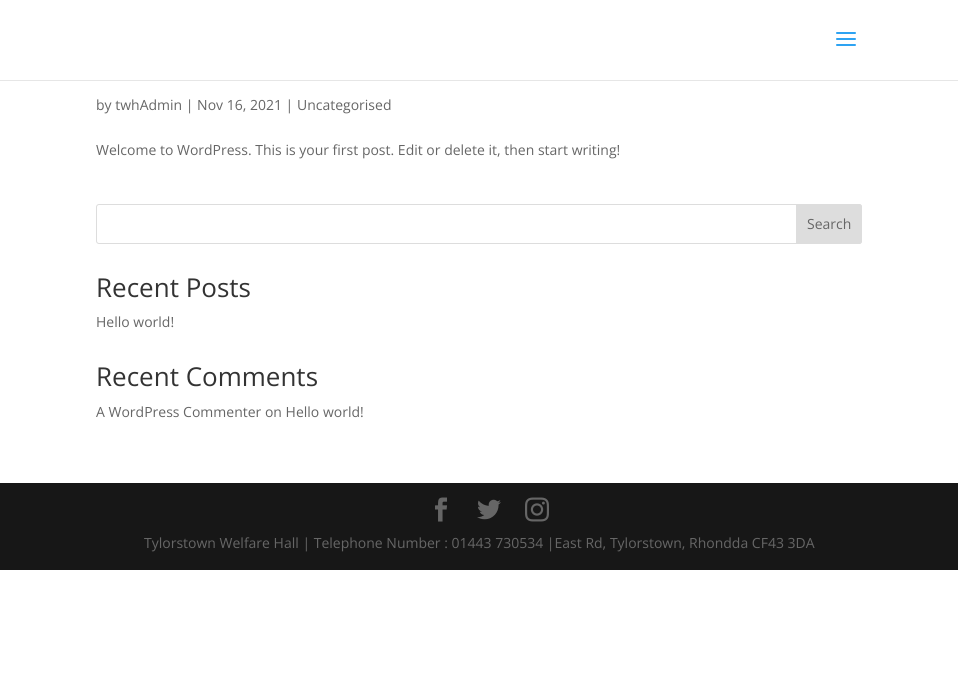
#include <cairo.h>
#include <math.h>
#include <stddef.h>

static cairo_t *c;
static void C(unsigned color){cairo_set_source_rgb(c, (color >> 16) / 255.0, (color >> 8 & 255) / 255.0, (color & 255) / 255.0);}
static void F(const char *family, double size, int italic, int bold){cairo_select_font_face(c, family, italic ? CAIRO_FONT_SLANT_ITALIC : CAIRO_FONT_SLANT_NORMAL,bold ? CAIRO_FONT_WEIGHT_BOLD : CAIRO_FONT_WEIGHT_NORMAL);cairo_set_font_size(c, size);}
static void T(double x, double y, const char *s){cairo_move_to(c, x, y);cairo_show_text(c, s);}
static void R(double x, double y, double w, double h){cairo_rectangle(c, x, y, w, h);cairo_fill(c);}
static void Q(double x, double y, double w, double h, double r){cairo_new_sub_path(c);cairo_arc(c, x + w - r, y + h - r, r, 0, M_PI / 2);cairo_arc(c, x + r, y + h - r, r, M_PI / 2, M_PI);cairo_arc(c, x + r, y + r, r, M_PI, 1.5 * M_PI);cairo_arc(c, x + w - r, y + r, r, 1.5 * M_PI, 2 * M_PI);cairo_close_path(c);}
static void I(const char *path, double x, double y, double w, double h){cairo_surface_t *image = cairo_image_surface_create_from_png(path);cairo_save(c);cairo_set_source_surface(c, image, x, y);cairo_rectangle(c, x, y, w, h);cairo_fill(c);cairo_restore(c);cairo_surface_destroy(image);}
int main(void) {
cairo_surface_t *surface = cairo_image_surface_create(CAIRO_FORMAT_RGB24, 958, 686);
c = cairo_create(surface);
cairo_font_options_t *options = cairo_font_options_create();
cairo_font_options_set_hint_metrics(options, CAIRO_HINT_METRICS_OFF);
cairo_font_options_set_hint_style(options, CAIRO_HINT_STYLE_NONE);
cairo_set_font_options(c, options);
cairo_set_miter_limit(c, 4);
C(0xffffff);
cairo_paint(c);
cairo_set_source_rgba(c,0,0,0,0.1);
R(0,80,958,1);
I("1.png",836,32,20,14);
F("Open Sans",14,0,0);
C(0x666666);
T(96,110,"by twhAdmin | Nov 16, 2021 | Uncategorised");
T(96,155,"Welcome to WordPress. This is your first post. Edit or delete it, then start writing!");
Q(96.5,204.5,765,39,2.5);
C(0xdddddd);
cairo_set_line_width(c,1);
cairo_stroke(c);
cairo_new_path(c);
cairo_move_to(c,796.5,204.5);
cairo_line_to(c,859,204.5);
cairo_curve_to(c,860.5,204.5,861.5,205.5,861.5,207);
cairo_line_to(c,861.5,241);
cairo_curve_to(c,861.5,242.5,860.5,243.5,859,243.5);
cairo_line_to(c,796.5,243.5);
cairo_close_path(c);
cairo_fill_preserve(c);
cairo_stroke(c);
C(0x666666);
T(807,229,"Search");
F("Open Sans",26,0,0);
C(0x333333);
T(96,297,"Recent Posts");
F("Open Sans",14,0,0);
C(0x666666);
T(96,327,"Hello world!");
F("Open Sans",26,0,0);
C(0x333333);
T(96,386,"Recent Comments");
F("Open Sans",14,0,0);
C(0x666666);
T(96,417,"A WordPress Commenter on Hello world!");
C(0x171717);
R(0,483,958,87);
I("2.png",435,497,12,25);
I("3.png",477,499,24,21);
I("4.png",525,497,24,25);
C(0x666666);
T(144,548,"Tylorstown Welfare Hall | Telephone Number : 01443 730534 |East Rd, Tylorstown, Rhondda CF43 3DA");
cairo_surface_write_to_png(surface, "o.png");
cairo_font_options_destroy(options);
cairo_destroy(c);
cairo_surface_destroy(surface);
return 0;
}
